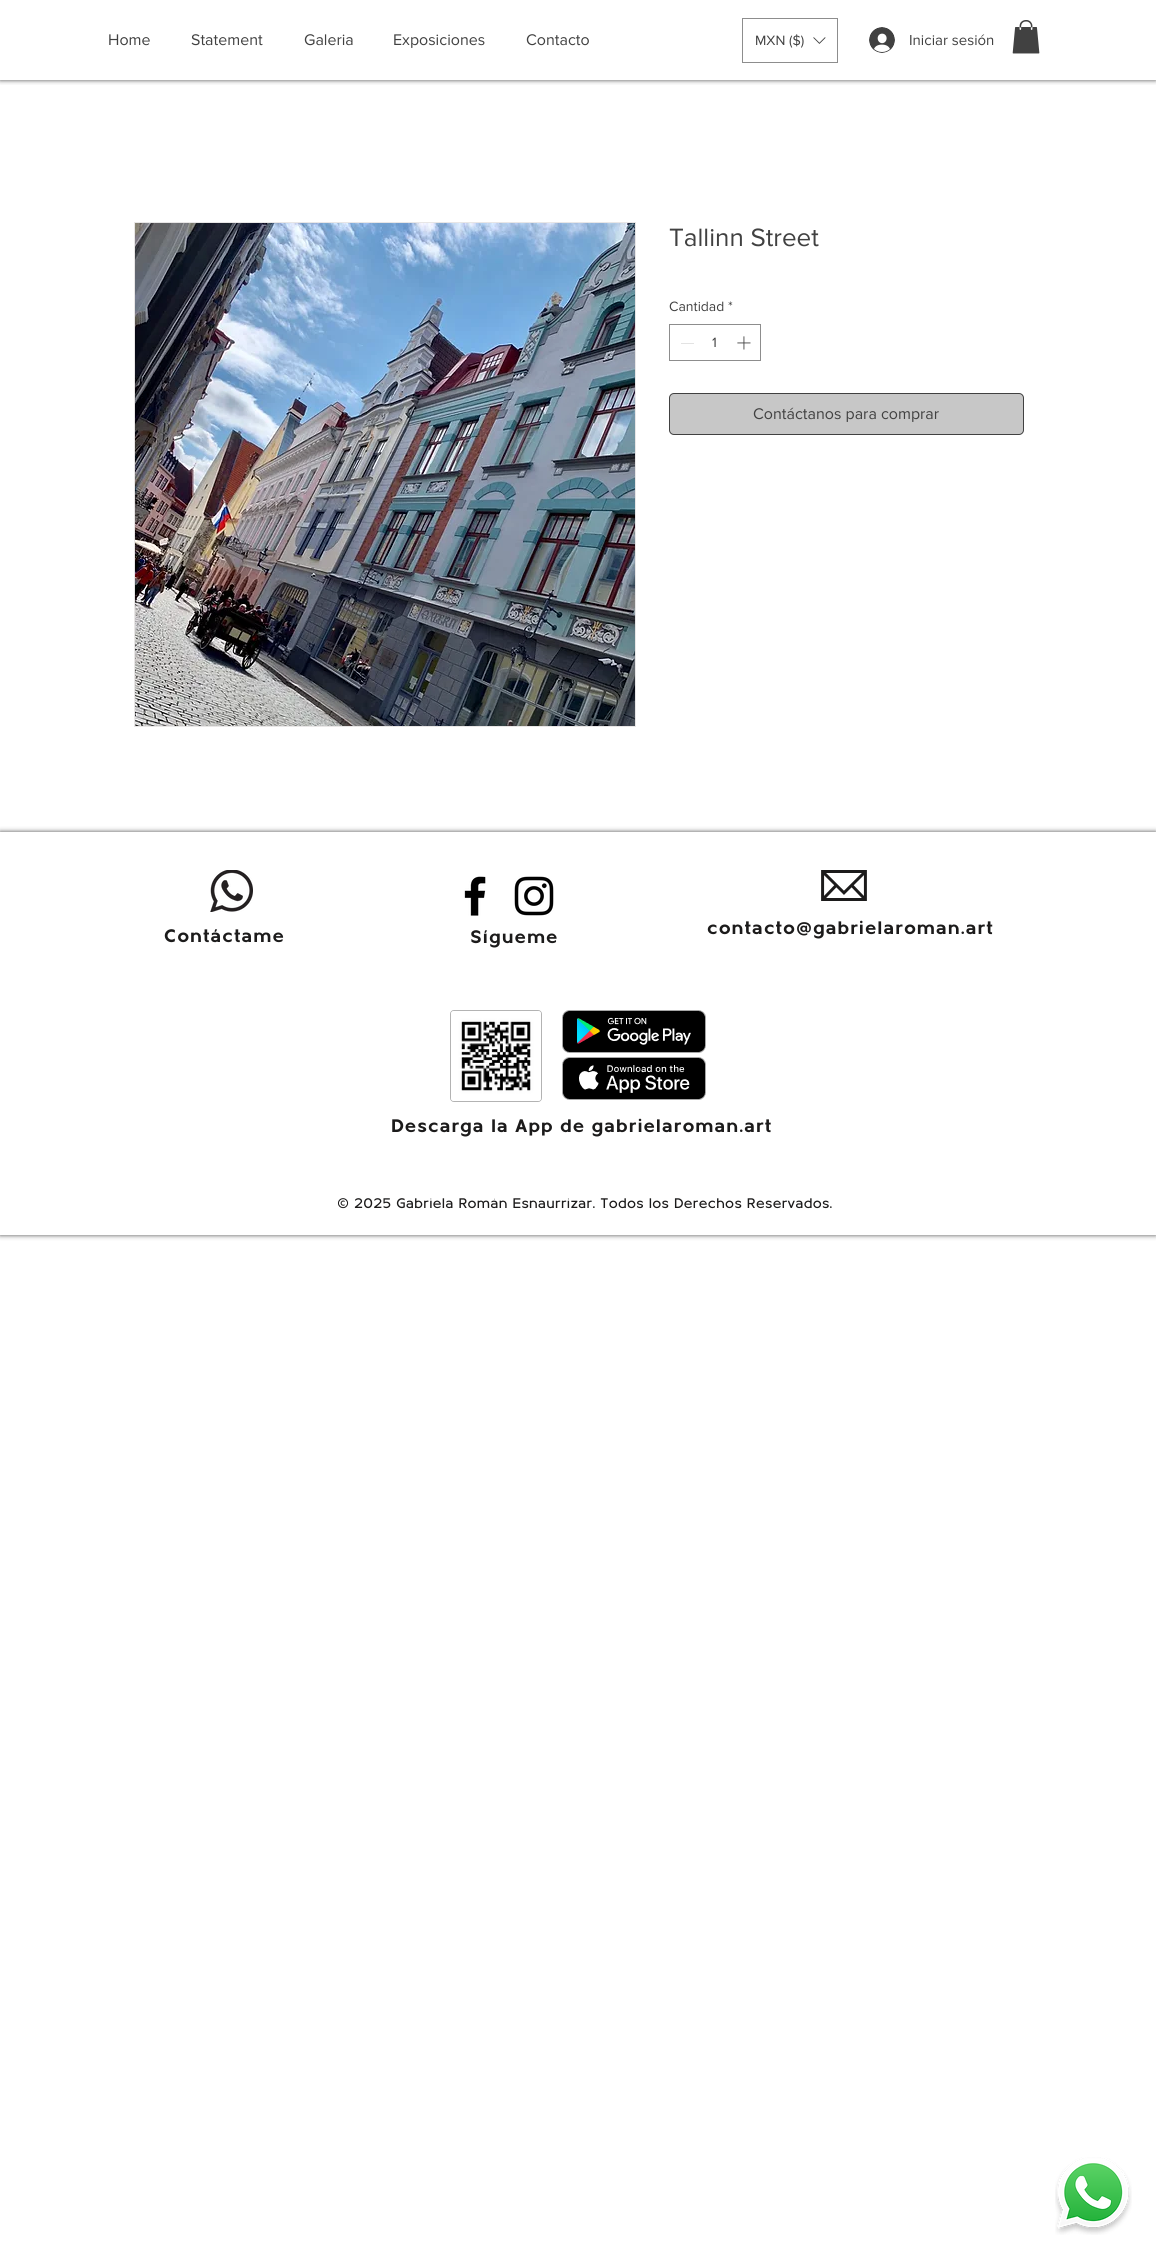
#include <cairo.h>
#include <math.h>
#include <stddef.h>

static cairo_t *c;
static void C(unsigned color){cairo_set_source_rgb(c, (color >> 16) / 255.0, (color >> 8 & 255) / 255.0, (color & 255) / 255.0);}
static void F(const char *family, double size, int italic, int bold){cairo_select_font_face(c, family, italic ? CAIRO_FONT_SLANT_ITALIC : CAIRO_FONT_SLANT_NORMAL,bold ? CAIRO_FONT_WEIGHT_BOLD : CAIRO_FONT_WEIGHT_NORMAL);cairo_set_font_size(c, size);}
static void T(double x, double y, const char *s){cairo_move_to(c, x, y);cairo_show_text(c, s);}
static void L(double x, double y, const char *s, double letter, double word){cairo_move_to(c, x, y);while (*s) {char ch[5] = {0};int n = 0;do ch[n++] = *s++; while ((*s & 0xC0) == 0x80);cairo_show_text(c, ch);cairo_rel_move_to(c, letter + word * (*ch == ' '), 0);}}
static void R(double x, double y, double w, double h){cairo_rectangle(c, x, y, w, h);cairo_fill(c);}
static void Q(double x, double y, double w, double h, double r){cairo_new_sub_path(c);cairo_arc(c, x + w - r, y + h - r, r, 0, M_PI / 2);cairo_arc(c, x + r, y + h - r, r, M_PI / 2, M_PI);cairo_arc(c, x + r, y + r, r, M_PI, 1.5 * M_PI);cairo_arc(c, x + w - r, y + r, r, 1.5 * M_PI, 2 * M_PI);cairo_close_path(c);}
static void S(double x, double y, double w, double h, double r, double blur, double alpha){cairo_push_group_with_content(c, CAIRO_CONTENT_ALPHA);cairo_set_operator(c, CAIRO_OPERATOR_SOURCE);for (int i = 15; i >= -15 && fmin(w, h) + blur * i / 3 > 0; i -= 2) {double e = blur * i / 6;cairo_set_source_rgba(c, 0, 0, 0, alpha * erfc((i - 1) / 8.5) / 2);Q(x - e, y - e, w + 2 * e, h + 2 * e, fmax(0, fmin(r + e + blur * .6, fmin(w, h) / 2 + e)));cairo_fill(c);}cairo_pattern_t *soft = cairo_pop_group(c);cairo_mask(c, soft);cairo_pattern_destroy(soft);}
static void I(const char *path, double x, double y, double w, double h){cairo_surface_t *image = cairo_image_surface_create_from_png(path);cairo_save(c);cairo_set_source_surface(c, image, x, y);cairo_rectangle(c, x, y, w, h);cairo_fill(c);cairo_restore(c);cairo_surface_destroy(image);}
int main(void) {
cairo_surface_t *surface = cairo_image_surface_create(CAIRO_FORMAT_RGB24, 1156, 2258);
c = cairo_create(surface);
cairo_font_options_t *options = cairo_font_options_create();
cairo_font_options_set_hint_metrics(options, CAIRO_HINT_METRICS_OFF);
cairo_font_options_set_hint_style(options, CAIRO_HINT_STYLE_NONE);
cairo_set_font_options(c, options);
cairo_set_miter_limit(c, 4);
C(0xffffff);
cairo_paint(c);
cairo_save(c);
cairo_rectangle(c,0,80,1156,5);
cairo_clip(c);
C(0x000000);
S(0,0,1156,80,0,2.5,.7);
cairo_restore(c);
F("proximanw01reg",16,0,0);
C(0x414141);
T(108,45,"Home");
T(191,45,"Statement");
T(304,45,"Galeria");
T(393,45,"Exposiciones");
T(526,45,"Contacto");
cairo_rectangle(c,742.5,18.5,95,44);
C(0x8d8d8d);
cairo_set_line_width(c,1);
cairo_stroke(c);
F("proximanw01reg",14,0,0);
C(0x414141);
T(755,45,"MXN ($)");
I("1.png",813,37,13,7);
I("2.png",869,27,26,26);
F("proximanw01reg",15,0,0);
T(909,45,"Iniciar sesión");
I("3.png",1012,20,28,34);
cairo_rectangle(c,134.5,222.5,501,504);
C(0xe8e6e6);
cairo_stroke(c);
I("4.png",135,223,500,503);
F("proximanw01reg",26,0,0);
C(0x414141);
T(669,246,"Tallinn Street");
F("proximanw01reg",14,0,0);
T(669,311,"Cantidad");
T(728,311,"*");
cairo_rectangle(c,669.5,324.5,91,36);
C(0x8d8d8d);
cairo_stroke(c);
C(0xe3e3e3);
R(681,343,13,1);
C(0x414141);
T(712,347,"1");
I("5.png",737,336,14,14);
C(0xc7c7c7);
Q(669.5,393.5,354,41,4.5);
cairo_fill_preserve(c);
C(0x414141);
cairo_stroke(c);
F("proximanw01reg",16,0,0);
T(753,419,"Contáctanos para comprar");
cairo_save(c);
cairo_set_fill_rule(c,CAIRO_FILL_RULE_EVEN_ODD);
cairo_new_path(c);
cairo_move_to(c,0,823);
cairo_line_to(c,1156,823);
cairo_line_to(c,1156,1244);
cairo_line_to(c,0,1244);
cairo_close_path(c);
cairo_move_to(c,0,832);
cairo_line_to(c,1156,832);
cairo_line_to(c,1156,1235);
cairo_line_to(c,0,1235);
cairo_close_path(c);
cairo_clip(c);
C(0x000000);
S(0,832,1156,403,0,2.5,.7);
cairo_restore(c);
I("6.png",210,870,43,42);
I("7.png",464,876,22,40);
I("8.png",514,876,40,40);
I("9.png",821,870,46,31);
F("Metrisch",19,0,1);
C(0x1c1b1b);
L(164,942,"Contáctame",.95,0);
L(470,943,"Sígueme",.95,0);
L(707,934,"contacto@gabrielaroman.art",.95,0);
Q(450.5,1010.5,91,91,4.5);
C(0xcccccc);
cairo_stroke(c);
C(0xffffff);
Q(450,1010,92,92,4);
cairo_fill(c);
Q(450.5,1010.5,91,91,3.5);
cairo_set_source_rgba(c,0,0,0,0.3);
cairo_stroke(c);
I("10.png",451,1011,90,90);
I("11.png",562,1010,144,43);
I("12.png",562,1057,144,43);
C(0x1c1b1b);
L(391,1132,"Descarga la App de gabrielaroman.art",.95,0);
F("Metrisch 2",14,0,1);
L(337,1208,"© 2025 Gabriela Román Esnaurrizar. Todos los Derechos Reservados.",.7,0);
I("13.png",1055,2157,77,78);
cairo_surface_write_to_png(surface, "o.png");
cairo_font_options_destroy(options);
cairo_destroy(c);
cairo_surface_destroy(surface);
return 0;
}
